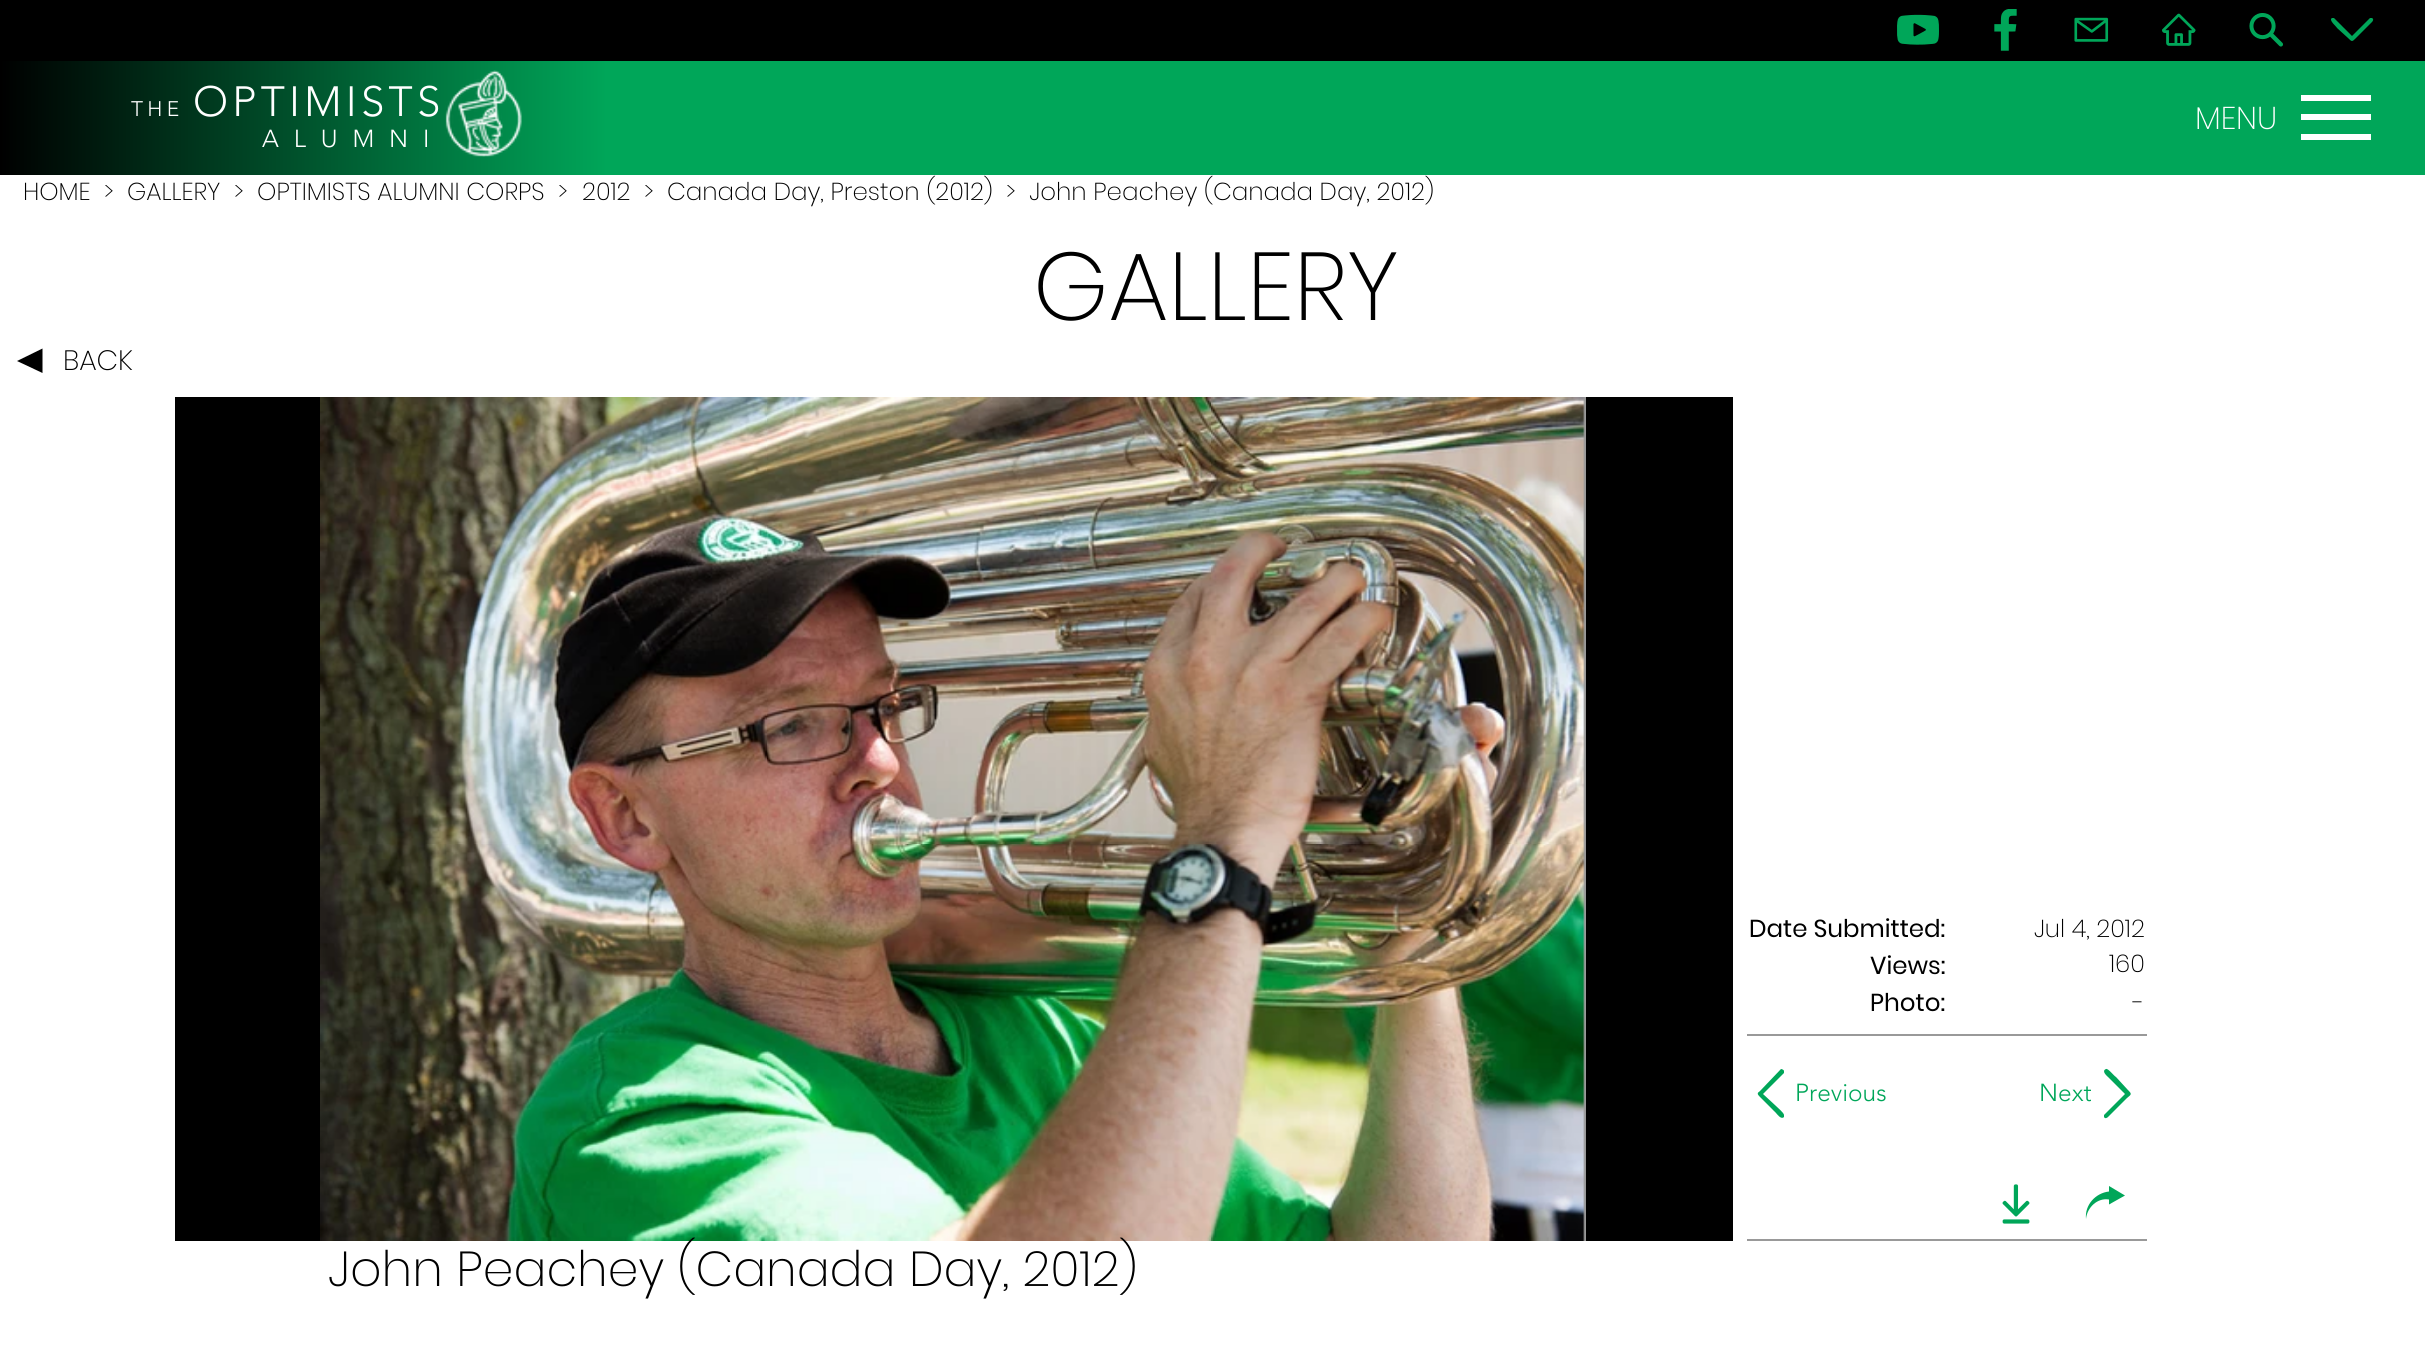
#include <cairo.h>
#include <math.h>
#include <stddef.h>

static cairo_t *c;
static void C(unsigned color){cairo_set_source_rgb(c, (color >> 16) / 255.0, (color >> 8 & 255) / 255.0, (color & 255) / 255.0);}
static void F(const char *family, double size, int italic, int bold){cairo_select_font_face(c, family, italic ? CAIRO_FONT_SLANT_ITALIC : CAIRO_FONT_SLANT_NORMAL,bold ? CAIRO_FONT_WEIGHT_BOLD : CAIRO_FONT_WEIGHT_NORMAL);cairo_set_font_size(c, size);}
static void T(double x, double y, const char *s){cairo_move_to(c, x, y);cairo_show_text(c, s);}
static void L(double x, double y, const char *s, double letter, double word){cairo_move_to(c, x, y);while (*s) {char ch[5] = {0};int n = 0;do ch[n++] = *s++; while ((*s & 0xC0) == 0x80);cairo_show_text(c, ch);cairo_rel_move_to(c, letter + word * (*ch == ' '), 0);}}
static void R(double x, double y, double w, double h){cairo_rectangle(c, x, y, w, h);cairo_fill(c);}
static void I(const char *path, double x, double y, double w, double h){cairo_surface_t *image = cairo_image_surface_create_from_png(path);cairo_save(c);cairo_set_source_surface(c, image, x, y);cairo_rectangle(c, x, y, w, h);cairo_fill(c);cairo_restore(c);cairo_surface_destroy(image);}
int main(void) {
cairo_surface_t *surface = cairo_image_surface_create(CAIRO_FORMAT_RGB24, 2425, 1348);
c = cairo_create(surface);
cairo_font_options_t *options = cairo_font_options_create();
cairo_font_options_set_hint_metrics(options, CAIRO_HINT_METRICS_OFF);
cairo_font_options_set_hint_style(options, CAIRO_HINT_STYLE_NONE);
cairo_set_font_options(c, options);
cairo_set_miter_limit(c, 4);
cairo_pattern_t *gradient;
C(0xffffff);
cairo_paint(c);
C(0x000000);
R(0,0,2425,61);
I("1.png",1897,14,42,31);
I("2.png",1994,9,23,42);
I("3.png",2074,17,35,25);
I("4.png",2162,13,34,33);
I("5.png",2249,13,34,34);
C(0x00a659);
cairo_new_path(c);
cairo_move_to(c,2332,18);
cairo_curve_to(c,2328,20,2337,27,2337,28);
cairo_line_to(c,2348,38);
cairo_curve_to(c,2352,42,2352,42,2356,38);
cairo_line_to(c,2372,22);
cairo_curve_to(c,2373,21,2374,19,2372,18);
cairo_line_to(c,2370,18);
cairo_line_to(c,2352,36);
cairo_line_to(c,2334,18);
cairo_close_path(c);
cairo_fill(c);
R(607,61,1818,114);
gradient = cairo_pattern_create_linear(0,118,607,118);
cairo_pattern_add_color_stop_rgba(gradient,0,0,0,0,1);
cairo_pattern_add_color_stop_rgba(gradient,1,0,0.651,0.349,1);
cairo_set_source(c,gradient);
cairo_pattern_destroy(gradient);
R(0,61,607,114);
F("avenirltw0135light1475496 Light",21,0,0);
C(0xffffff);
L(131,116,"THE",4.25,0);
F("avenirltw0135light1475496 Light",42,0,0);
L(193,116,"OPTIMISTS",4.25,0);
F("avenirltw0135light1475496 Light",24.5,0,0);
L(262,147,"A L U M N I",4.25,0);
I("6.png",445,70,77,87);
F("Poppins ExtraLight",31.5,0,0);
T(2195,129,"MENU");
R(2301,134,70,6);
R(2301,95,70,6);
R(2301,114,70,6);
F("Poppins ExtraLight",24.5,0,0);
C(0x000000);
T(23,200,"HOME");
T(104,200,">");
T(127,200,"GALLERY");
T(234,200,">");
T(257,200,"OPTIMISTS ALUMNI CORPS");
T(558,200,">");
T(582,200,"2012");
T(644,200,">");
T(667,200,"Canada Day, Preston (2012)");
T(1006,200,">  John Peachey (Canada Day, 2012)");
F("Poppins ExtraLight",96,0,0);
T(1033,320,"GALLERY");
cairo_new_path(c);
cairo_move_to(c,42.5,373);
cairo_line_to(c,17,361);
cairo_line_to(c,42.5,348.5);
cairo_close_path(c);
cairo_fill(c);
F("Poppins ExtraLight",28,0,0);
T(63,370,"BACK");
gradient = cairo_pattern_create_linear(175,819,1733,819);
cairo_pattern_add_color_stop_rgba(gradient,.15,0,0,0,1);
cairo_pattern_add_color_stop_rgba(gradient,.41,1,1,1,1);
cairo_pattern_add_color_stop_rgba(gradient,.6,1,1,1,1);
cairo_pattern_add_color_stop_rgba(gradient,.85,0,0,0,1);
cairo_set_source(c,gradient);
cairo_pattern_destroy(gradient);
R(175,397,1558,844);
C(0x999999);
R(1583,397,3,844);
I("7.png",320,397,1265,844);
F("Poppins",24.5,0,0);
C(0x000000);
T(1749,937,"Date Submitted:");
F("Poppins ExtraLight",24.5,0,0);
T(2034,937,"Jul 4, 2012");
F("Poppins",24.5,0,0);
T(1870,974,"Views:");
F("Poppins ExtraLight",24.5,0,0);
T(2109,972,"160");
F("Poppins",24.5,0,0);
T(1870,1011,"Photo:");
F("Poppins ExtraLight",24.5,0,0);
T(2133,1011,"-");
C(0x999999);
R(1747,1034,400,2);
C(0x00a659);
cairo_new_path(c);
cairo_move_to(c,1781,1069);
cairo_line_to(c,1760,1091);
cairo_curve_to(c,1757,1093,1757,1094,1760,1097);
cairo_line_to(c,1776,1113);
cairo_curve_to(c,1777,1114,1781,1120,1784,1117);
cairo_line_to(c,1784,1115);
cairo_curve_to(c,1784,1113,1778,1108,1776,1106);
cairo_line_to(c,1763,1094);
cairo_line_to(c,1784,1073);
cairo_line_to(c,1784,1071);
cairo_curve_to(c,1784,1070,1782,1069,1781,1069);
cairo_close_path(c);
cairo_fill(c);
F("avenirltw0135light1475496 Light",24.5,0,0);
T(1795,1101,"Previous");
T(2039,1101,"Next");
cairo_new_path(c);
cairo_move_to(c,2106,1069);
cairo_curve_to(c,2101,1071,2107,1076,2108,1077);
cairo_line_to(c,2125,1094);
cairo_line_to(c,2104,1115);
cairo_line_to(c,2104,1117);
cairo_curve_to(c,2105,1119,2107,1118,2108,1117);
cairo_line_to(c,2127,1098);
cairo_curve_to(c,2132,1094,2132,1094,2127,1089);
cairo_line_to(c,2116,1077);
cairo_curve_to(c,2114,1076,2108,1068,2106,1069);
cairo_close_path(c);
cairo_fill(c);
I("8.png",2002,1184,28,40);
cairo_new_path(c);
cairo_move_to(c,2086,1219);
cairo_curve_to(c,2087,1207.5,2097.5,1197.5,2109,1199.5);
cairo_line_to(c,2109,1204.5);
cairo_line_to(c,2125,1195.5);
cairo_line_to(c,2109,1186);
cairo_line_to(c,2109,1191.5);
cairo_curve_to(c,2095.5,1193,2084.5,1205,2086,1219);
cairo_close_path(c);
cairo_fill(c);
C(0x999999);
R(1747,1239,400,2);
F("Poppins ExtraLight",49,0,0);
C(0x000000);
T(328,1286,"John Peachey (Canada Day, 2012)");
cairo_surface_write_to_png(surface, "o.png");
cairo_font_options_destroy(options);
cairo_destroy(c);
cairo_surface_destroy(surface);
return 0;
}
